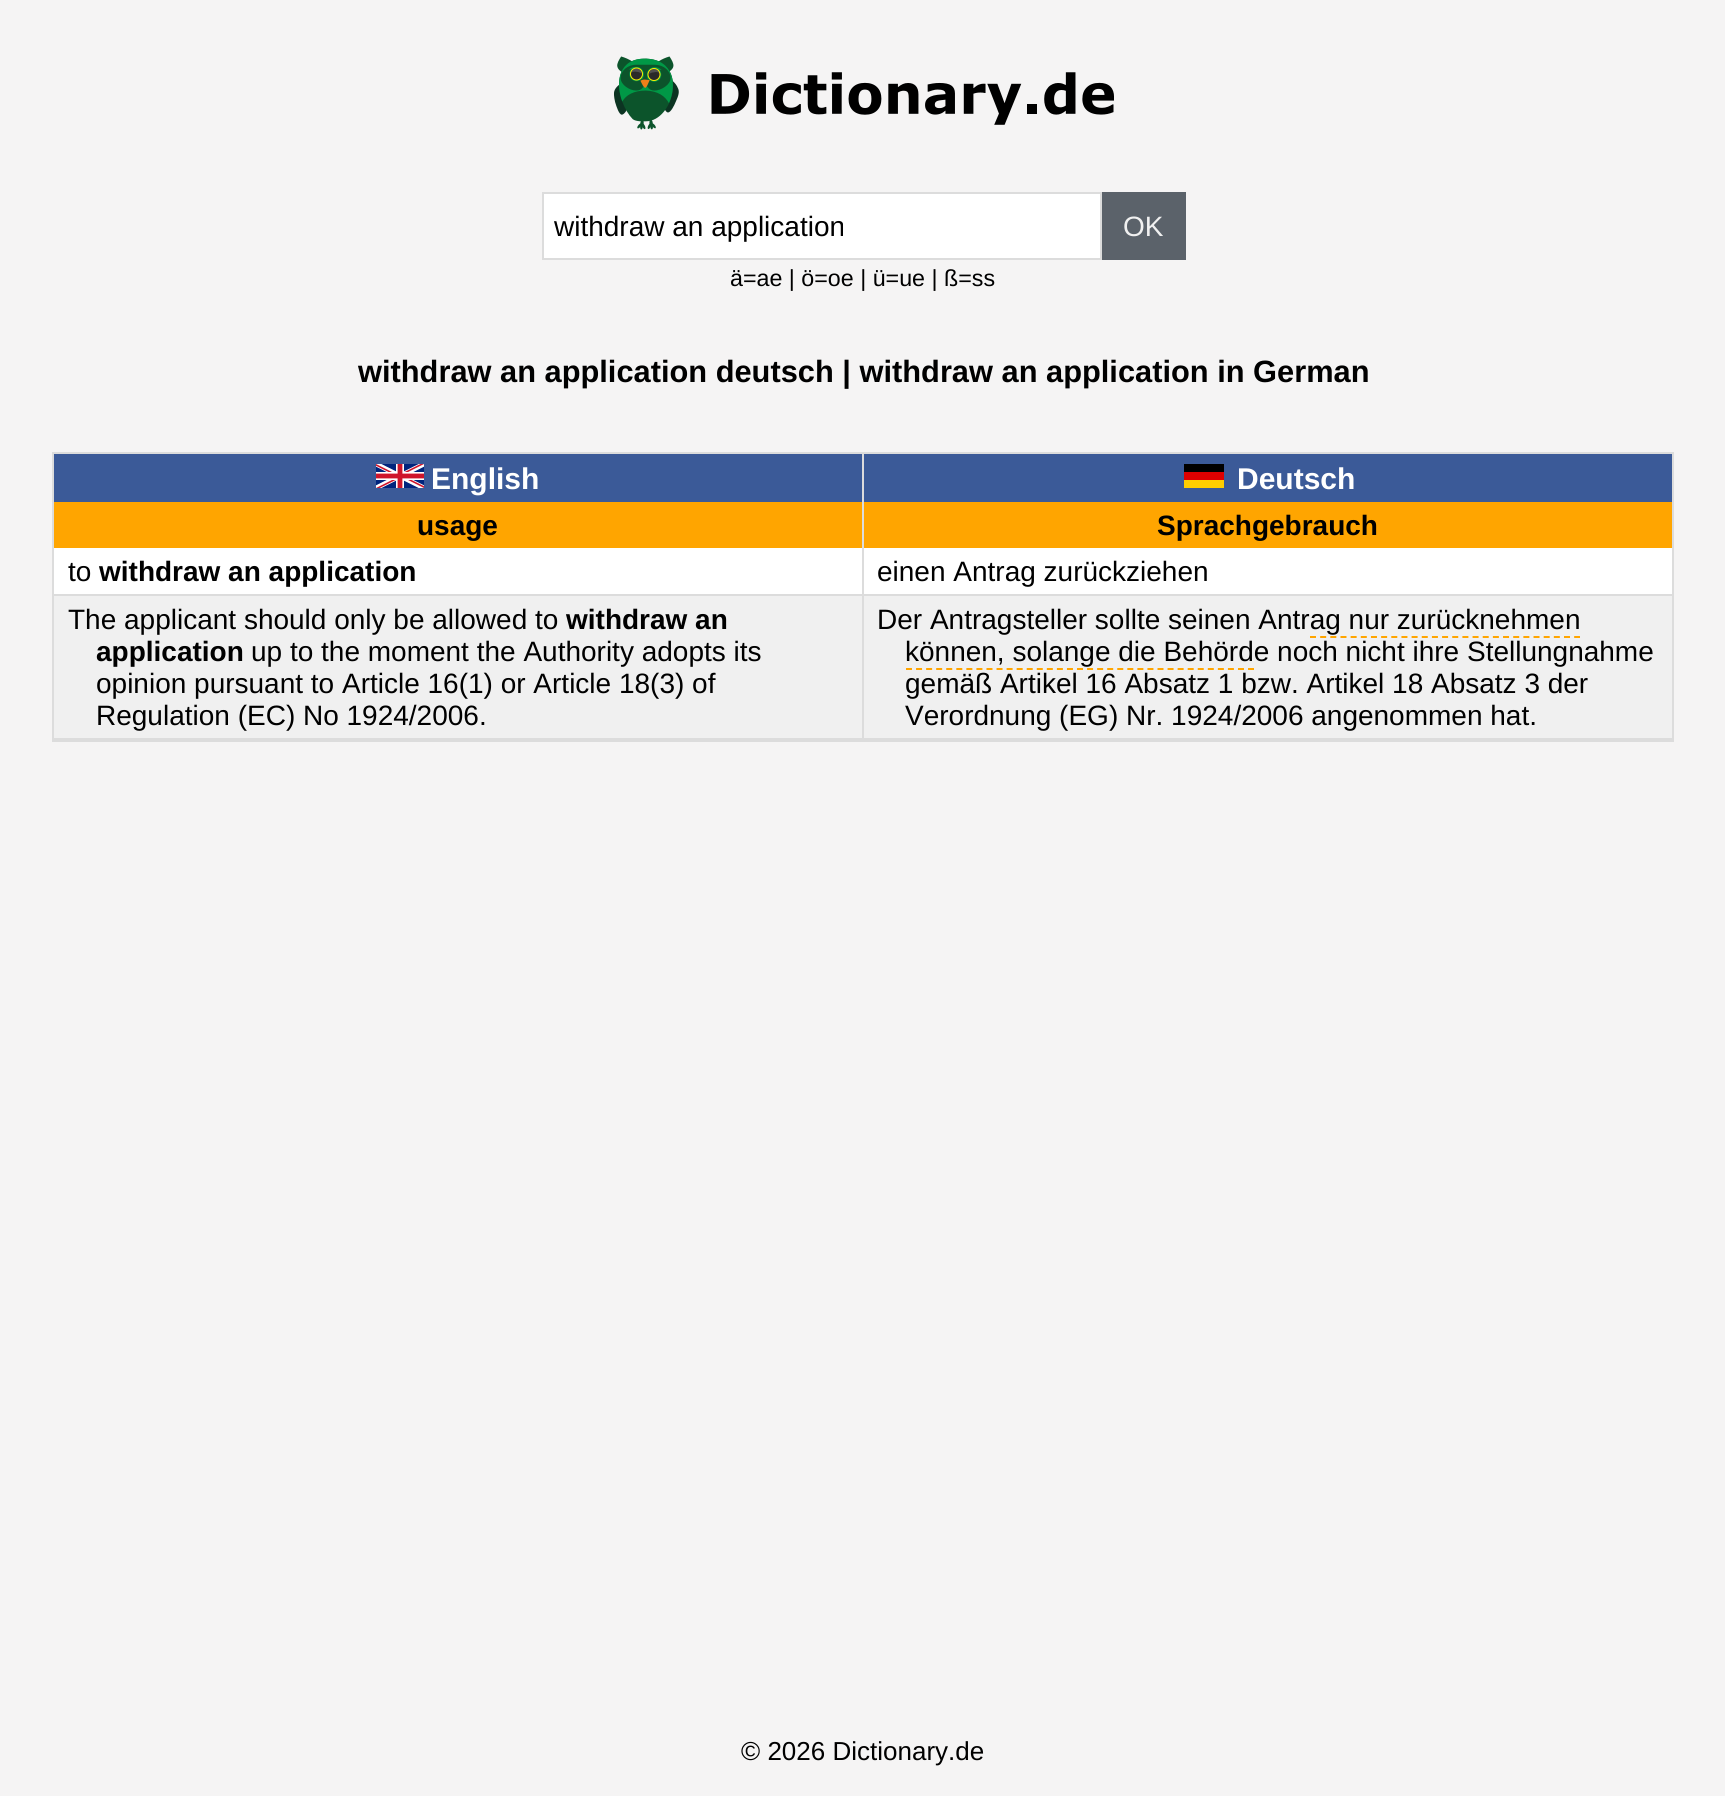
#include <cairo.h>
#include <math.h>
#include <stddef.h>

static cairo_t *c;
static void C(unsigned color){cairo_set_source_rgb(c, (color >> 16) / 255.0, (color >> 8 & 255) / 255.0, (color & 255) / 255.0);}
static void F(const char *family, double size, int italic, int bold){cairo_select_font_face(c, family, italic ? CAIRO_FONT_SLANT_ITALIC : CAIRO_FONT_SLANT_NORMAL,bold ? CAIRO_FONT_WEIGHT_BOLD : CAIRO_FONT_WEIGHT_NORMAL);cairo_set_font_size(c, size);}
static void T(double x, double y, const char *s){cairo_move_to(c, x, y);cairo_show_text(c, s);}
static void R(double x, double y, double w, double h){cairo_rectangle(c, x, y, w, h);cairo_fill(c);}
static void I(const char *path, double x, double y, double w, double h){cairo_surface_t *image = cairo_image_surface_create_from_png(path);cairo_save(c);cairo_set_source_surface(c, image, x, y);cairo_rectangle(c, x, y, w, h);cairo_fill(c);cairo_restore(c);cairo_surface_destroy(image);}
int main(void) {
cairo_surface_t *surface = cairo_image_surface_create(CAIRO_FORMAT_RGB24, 1725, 1796);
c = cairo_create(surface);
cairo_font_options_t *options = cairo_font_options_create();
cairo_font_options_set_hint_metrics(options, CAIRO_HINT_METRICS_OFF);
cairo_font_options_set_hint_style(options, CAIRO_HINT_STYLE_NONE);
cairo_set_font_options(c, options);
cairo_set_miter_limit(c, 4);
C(0xf5f4f4);
cairo_paint(c);
I("1.png",614,56,500,74);
C(0xffffff);
cairo_rectangle(c,543,193,558,66);
cairo_fill_preserve(c);
C(0xdcdcdc);
cairo_stroke(c);
F("Liberation Sans",28,0,0);
C(0x000000);
T(554,236,"withdraw an application");
C(0x5b626a);
R(1102,192,84,68);
C(0xf0f0f0);
T(1123,236,"OK");
F("Liberation Sans",23.25,0,0);
C(0x000000);
T(730,286,"ä=ae | ö=oe | ü=ue | ß=ss");
F("Liberation Sans",30.8,0,1);
T(358,382,"withdraw an application deutsch | withdraw an application in German");
cairo_rectangle(c,53,453,1620,288);
C(0xdcdcdc);
cairo_stroke(c);
C(0x3b5a98);
R(54,454,808,48);
C(0xdcdcdc);
R(862,454,2,94);
I("2.png",376,464,48,24);
F("Liberation Sans",30,0,1);
C(0xffffff);
T(431,489,"English");
C(0x3b5a98);
R(864,454,808,48);
C(0x000000);
R(1184,464,40,8);
C(0xdd0000);
R(1184,472,40,8);
C(0xffce00);
R(1184,480,40,8);
C(0xffffff);
T(1237,489,"Deutsch");
C(0xffa500);
R(54,502,808,46);
F("Liberation Sans",28,0,1);
C(0x000000);
T(417,535,"usage");
C(0xffa500);
R(864,502,808,46);
C(0x000000);
T(1157,535,"Sprachgebrauch");
C(0xffffff);
R(54,548,1618,46);
C(0xdcdcdc);
R(862,548,2,48);
R(54,594,1618,2);
F("Liberation Sans",28,0,0);
C(0x000000);
T(68,581,"to");
F("Liberation Sans",28,0,1);
T(99,581,"withdraw an application");
F("Liberation Sans",28,0,0);
T(877,581,"einen Antrag zurückziehen");
C(0xf0f0f0);
R(54,596,1618,142);
C(0xdcdcdc);
R(862,596,2,144);
R(54,738,1618,2);
C(0x000000);
T(68,629,"The applicant should only be allowed to");
F("Liberation Sans",28,0,1);
T(566,629,"withdraw an");
T(96,661,"application");
F("Liberation Sans",28,0,0);
T(251,661,"up to the moment the Authority adopts its");
T(96,693,"opinion pursuant to Article 16(1) or Article 18(3) of");
T(96,725,"Regulation (EC) No 1924/2006.");
T(877,629,"Der Antragsteller sollte seinen Antrag nur zurücknehmen");
T(905,661,"können, solange die Behörde noch nicht ihre Stellungnahme");
cairo_new_path(c);
cairo_move_to(c,1310,637);
cairo_line_to(c,1580,637);
C(0xffa500);
cairo_set_dash(c,(double[]){6,4.16},2,0);
cairo_stroke(c);
cairo_new_path(c);
cairo_move_to(c,906,669);
cairo_line_to(c,1254,669);
cairo_set_dash(c,(double[]){6,4.06},2,0);
cairo_stroke(c);
C(0x000000);
T(905,693,"gemäß Artikel 16 Absatz 1 bzw. Artikel 18 Absatz 3 der");
T(905,725,"Verordnung (EG) Nr. 1924/2006 angenommen hat.");
F("Liberation Sans",26,0,0);
T(741,1760,"© 2026 Dictionary.de");
cairo_surface_write_to_png(surface, "o.png");
cairo_font_options_destroy(options);
cairo_destroy(c);
cairo_surface_destroy(surface);
return 0;
}
